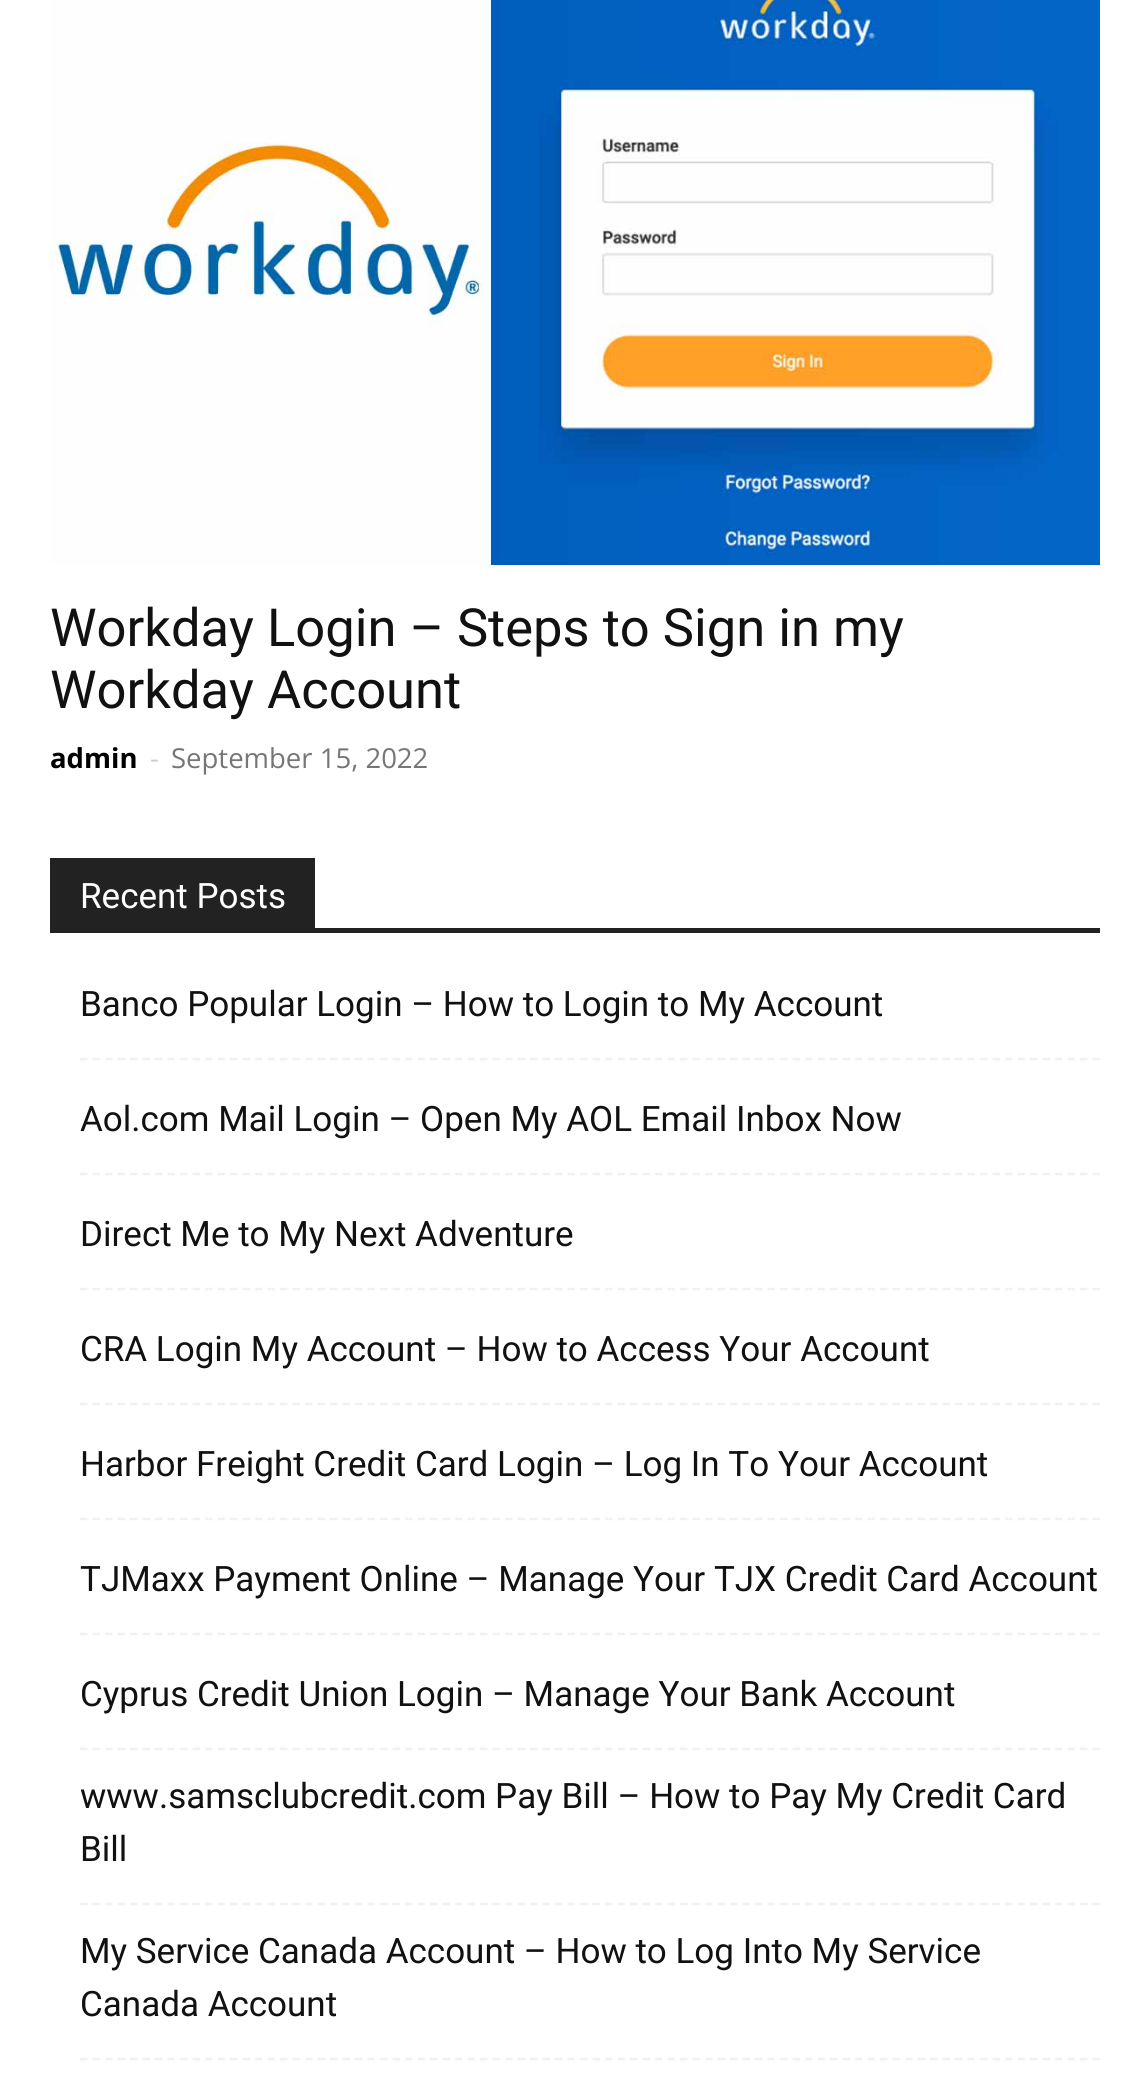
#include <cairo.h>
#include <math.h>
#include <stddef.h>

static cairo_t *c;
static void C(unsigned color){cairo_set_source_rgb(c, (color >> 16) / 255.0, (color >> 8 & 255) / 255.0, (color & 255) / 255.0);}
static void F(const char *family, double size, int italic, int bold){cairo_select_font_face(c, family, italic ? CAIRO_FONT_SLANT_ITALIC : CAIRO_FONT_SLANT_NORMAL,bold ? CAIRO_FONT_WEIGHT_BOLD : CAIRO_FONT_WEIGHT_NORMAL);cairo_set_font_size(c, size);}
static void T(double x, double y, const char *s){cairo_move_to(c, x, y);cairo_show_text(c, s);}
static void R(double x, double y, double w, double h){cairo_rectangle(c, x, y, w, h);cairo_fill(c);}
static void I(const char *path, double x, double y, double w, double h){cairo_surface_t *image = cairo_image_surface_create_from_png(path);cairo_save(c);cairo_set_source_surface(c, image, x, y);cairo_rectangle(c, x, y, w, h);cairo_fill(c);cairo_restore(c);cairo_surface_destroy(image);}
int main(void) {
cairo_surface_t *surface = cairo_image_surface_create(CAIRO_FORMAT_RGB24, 1148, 2084);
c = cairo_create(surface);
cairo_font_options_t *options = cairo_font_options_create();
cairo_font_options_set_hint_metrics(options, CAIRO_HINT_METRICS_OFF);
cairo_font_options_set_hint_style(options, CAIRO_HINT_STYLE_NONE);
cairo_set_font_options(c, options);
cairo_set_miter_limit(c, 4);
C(0xffffff);
cairo_paint(c);
I("1.png",50,0,1050,565);
F("Roboto",52.5,0,0);
C(0x111111);
T(50,646,"Workday Login – Steps to Sign in my");
T(50,708,"Workday Account");
F("Open Sans",27.5,0,1);
C(0x000000);
T(50,768,"admin");
F("Open Sans",27.5,0,0);
C(0xcccccc);
T(150,768,"-");
C(0x767676);
T(171,768,"September 15, 2022");
C(0x222222);
R(50,928,1050,5);
R(50,858,265,70);
F("Roboto",35,0,0);
C(0xffffff);
T(80,908,"Recent Posts");
cairo_new_path(c);
cairo_move_to(c,80,1059);
cairo_line_to(c,1100,1059);
C(0xf1f1f1);
cairo_set_line_width(c,2.5);
cairo_set_dash(c,(double[]){7.5,5},2,0);
cairo_stroke(c);
C(0x111111);
T(80,1016,"Banco Popular Login – How to Login to My Account");
cairo_new_path(c);
cairo_move_to(c,80,1174);
cairo_line_to(c,1100,1174);
C(0xf1f1f1);
cairo_stroke(c);
C(0x111111);
T(80,1131,"Aol.com Mail Login – Open My AOL Email Inbox Now");
cairo_new_path(c);
cairo_move_to(c,80,1289);
cairo_line_to(c,1100,1289);
C(0xf1f1f1);
cairo_stroke(c);
C(0x111111);
T(80,1246,"Direct Me to My Next Adventure");
cairo_new_path(c);
cairo_move_to(c,80,1404);
cairo_line_to(c,1100,1404);
C(0xf1f1f1);
cairo_stroke(c);
C(0x111111);
T(80,1361,"CRA Login My Account – How to Access Your Account");
cairo_new_path(c);
cairo_move_to(c,80,1519);
cairo_line_to(c,1100,1519);
C(0xf1f1f1);
cairo_stroke(c);
C(0x111111);
T(80,1476,"Harbor Freight Credit Card Login – Log In To Your Account");
cairo_new_path(c);
cairo_move_to(c,80,1634);
cairo_line_to(c,1100,1634);
C(0xf1f1f1);
cairo_stroke(c);
C(0x111111);
T(80,1591,"TJMaxx Payment Online – Manage Your TJX Credit Card Account");
cairo_new_path(c);
cairo_move_to(c,80,1749);
cairo_line_to(c,1100,1749);
C(0xf1f1f1);
cairo_stroke(c);
C(0x111111);
T(80,1706,"Cyprus Credit Union Login – Manage Your Bank Account");
cairo_new_path(c);
cairo_move_to(c,80,1904);
cairo_line_to(c,1100,1904);
C(0xf1f1f1);
cairo_stroke(c);
C(0x111111);
T(80,1808,"www.samsclubcredit.com Pay Bill – How to Pay My Credit Card");
T(80,1861,"Bill");
cairo_new_path(c);
cairo_move_to(c,80,2059);
cairo_line_to(c,1100,2059);
C(0xf1f1f1);
cairo_stroke(c);
C(0x111111);
T(80,1963,"My Service Canada Account – How to Log Into My Service");
T(80,2016,"Canada Account");
cairo_surface_write_to_png(surface, "o.png");
cairo_font_options_destroy(options);
cairo_destroy(c);
cairo_surface_destroy(surface);
return 0;
}
